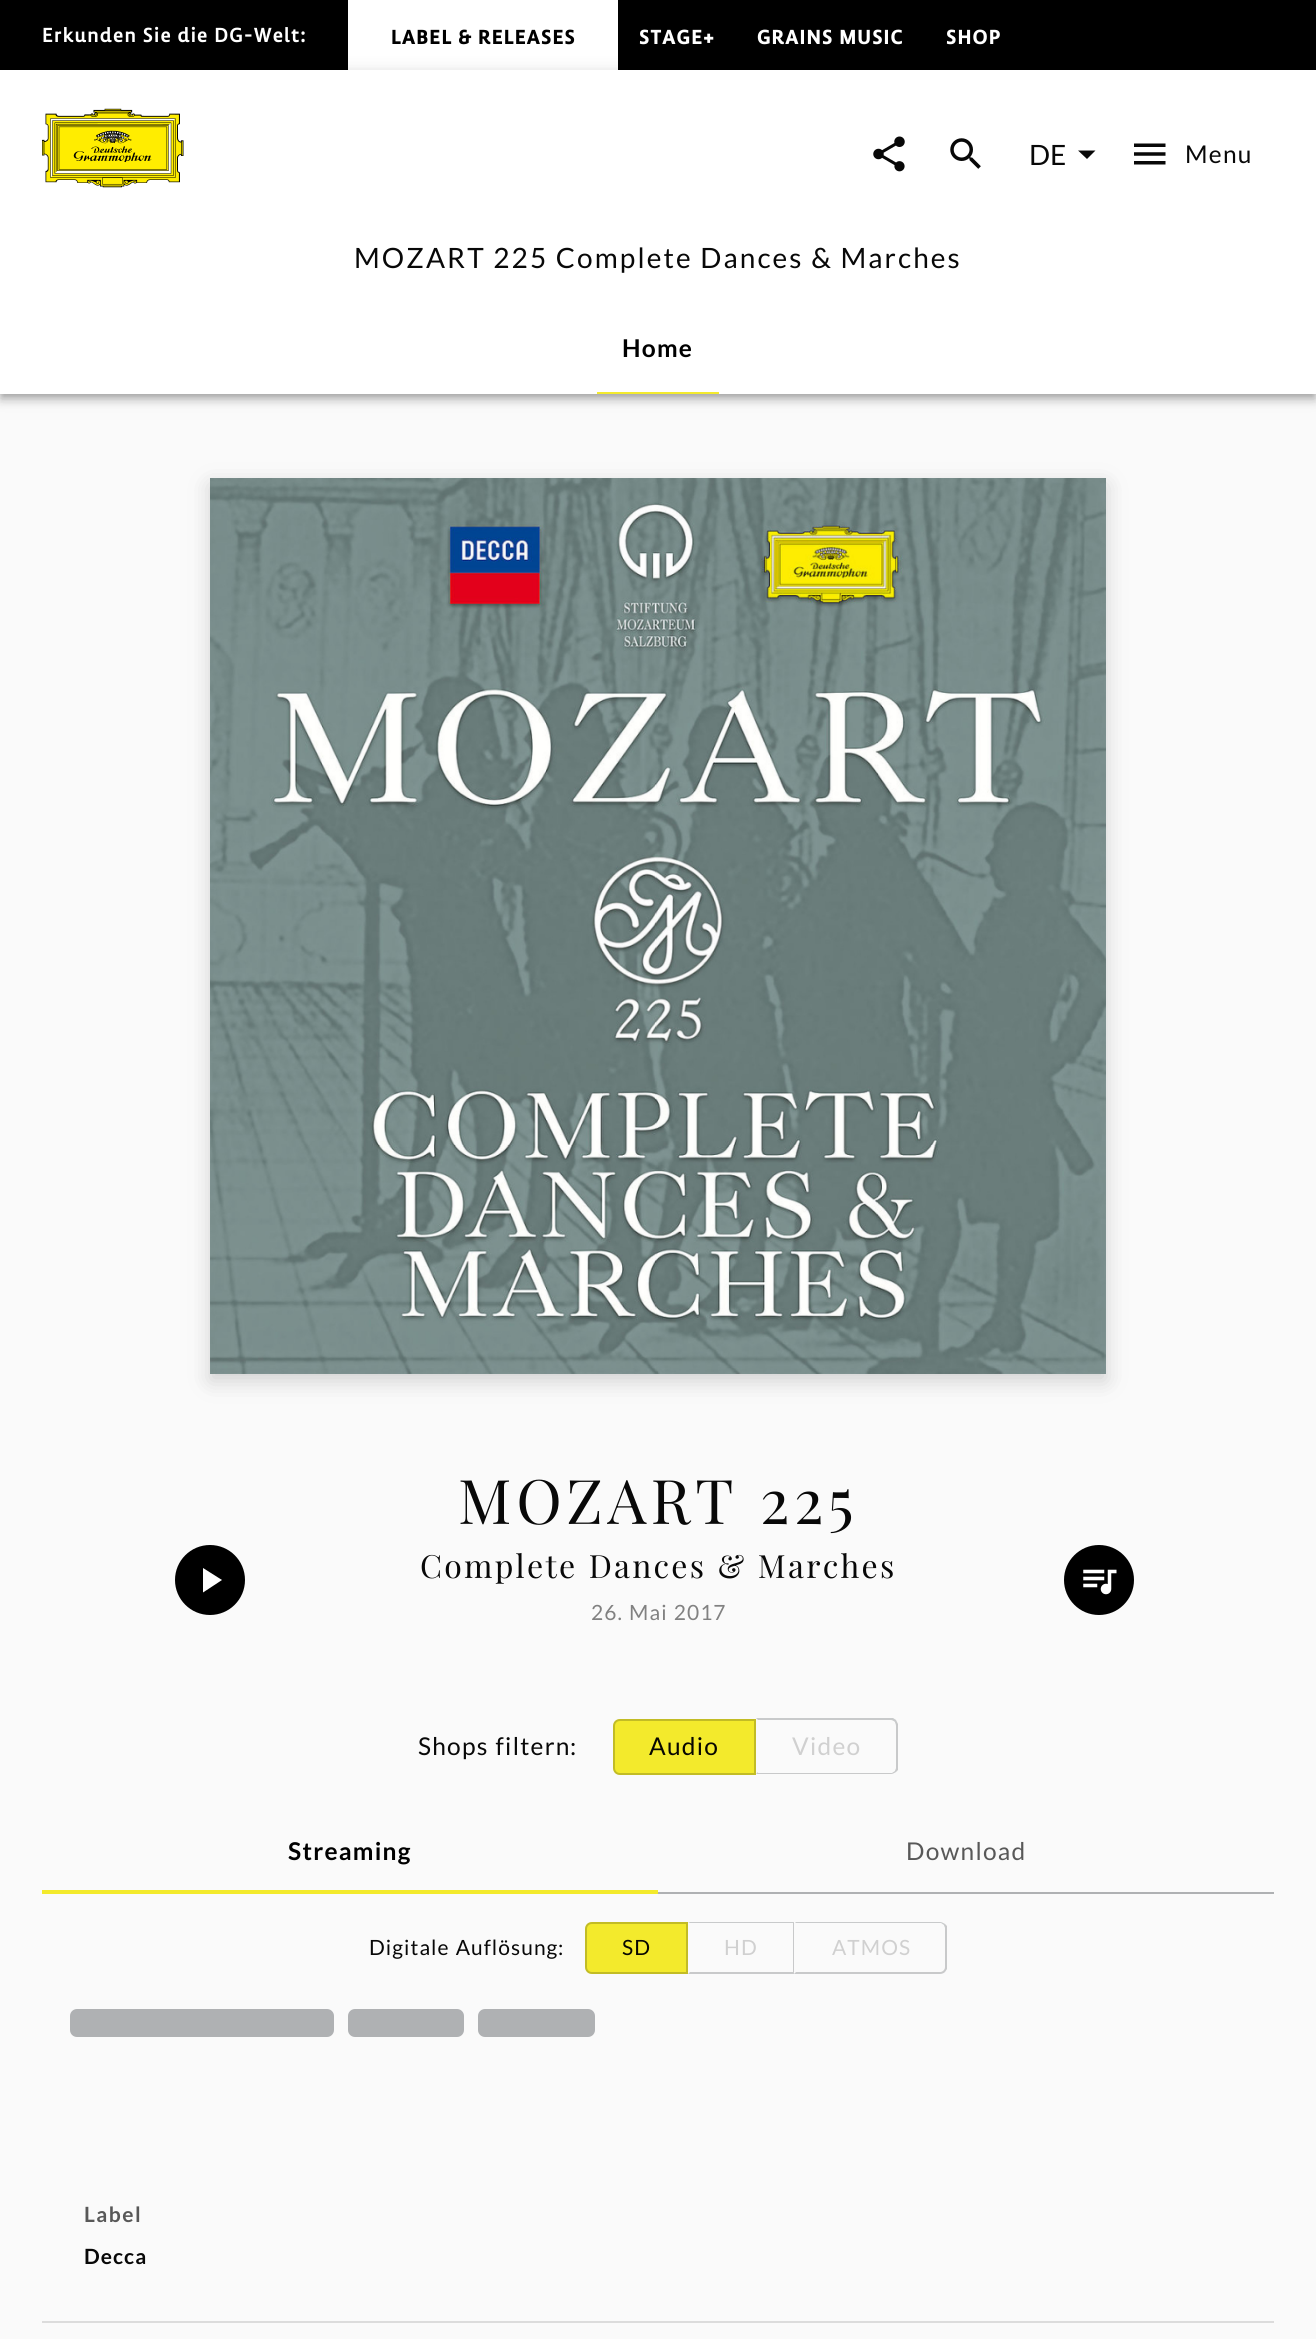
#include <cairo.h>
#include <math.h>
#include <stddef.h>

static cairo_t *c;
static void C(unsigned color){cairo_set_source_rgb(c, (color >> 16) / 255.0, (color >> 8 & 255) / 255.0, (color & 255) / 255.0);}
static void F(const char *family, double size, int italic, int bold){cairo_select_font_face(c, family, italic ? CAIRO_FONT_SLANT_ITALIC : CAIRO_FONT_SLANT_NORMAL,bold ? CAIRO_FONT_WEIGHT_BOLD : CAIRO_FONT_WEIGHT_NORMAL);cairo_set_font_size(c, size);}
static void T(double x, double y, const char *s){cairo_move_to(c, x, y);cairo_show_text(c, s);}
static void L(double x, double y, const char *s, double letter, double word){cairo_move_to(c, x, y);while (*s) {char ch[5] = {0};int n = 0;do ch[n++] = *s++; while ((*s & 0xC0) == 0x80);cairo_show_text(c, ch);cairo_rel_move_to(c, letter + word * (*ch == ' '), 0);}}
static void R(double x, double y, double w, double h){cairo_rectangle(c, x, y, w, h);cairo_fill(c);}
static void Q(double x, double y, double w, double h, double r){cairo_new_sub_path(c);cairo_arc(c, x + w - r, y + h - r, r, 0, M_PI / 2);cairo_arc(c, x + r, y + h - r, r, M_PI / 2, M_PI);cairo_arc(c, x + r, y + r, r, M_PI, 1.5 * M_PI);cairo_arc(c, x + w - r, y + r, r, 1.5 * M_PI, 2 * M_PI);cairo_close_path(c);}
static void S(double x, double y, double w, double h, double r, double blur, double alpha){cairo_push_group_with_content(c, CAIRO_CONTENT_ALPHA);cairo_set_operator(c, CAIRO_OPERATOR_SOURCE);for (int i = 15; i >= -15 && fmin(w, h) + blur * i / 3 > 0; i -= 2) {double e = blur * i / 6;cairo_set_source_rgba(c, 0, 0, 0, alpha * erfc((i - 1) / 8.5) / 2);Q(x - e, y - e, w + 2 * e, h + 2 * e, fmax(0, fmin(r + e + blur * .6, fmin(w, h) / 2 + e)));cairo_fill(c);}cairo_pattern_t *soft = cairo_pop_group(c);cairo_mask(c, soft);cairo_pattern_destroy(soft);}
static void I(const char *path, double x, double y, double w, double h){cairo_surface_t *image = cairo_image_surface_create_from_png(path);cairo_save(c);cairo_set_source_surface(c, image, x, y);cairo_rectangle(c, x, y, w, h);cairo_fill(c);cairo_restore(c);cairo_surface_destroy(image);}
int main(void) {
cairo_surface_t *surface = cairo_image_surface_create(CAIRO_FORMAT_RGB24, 1316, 2339);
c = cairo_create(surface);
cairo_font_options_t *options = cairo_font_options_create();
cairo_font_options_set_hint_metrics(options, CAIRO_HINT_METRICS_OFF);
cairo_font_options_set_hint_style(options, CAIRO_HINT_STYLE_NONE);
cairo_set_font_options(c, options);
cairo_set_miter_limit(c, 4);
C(0xfafafa);
cairo_paint(c);
C(0x000000);
R(0,0,1316,70);
F("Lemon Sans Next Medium",21,0,0);
C(0xffffff);
L(42,42,"Erkunden Sie die DG-Welt:",1.05,0);
R(348,0,270,70);
F("Lemon Sans Next",21,0,1);
C(0x000000);
L(391,44,"LABEL & RELEASES",1.05,0);
C(0xffffff);
L(639,44,"STAGE+",1.05,0);
L(757,44,"GRAINS MUSIC",1.05,0);
L(946,44,"SHOP",1.05,0);
C(0x000000);
S(0,72,1316,324,0,9,.12);
S(0,77,1316,324,0,4.5,.14);
S(2,75,1312,321,0,3.5,.2);
C(0xffffff);
R(0,70,1316,324);
I("1.png",42,108,142,80);
I("2.png",873,136,32,36);
I("3.png",950,138,31,31);
F("Lato",28,0,0);
C(0x080808);
T(1029,165,"DE");
cairo_new_path(c);
cairo_move_to(c,1078,150.5);
cairo_line_to(c,1087,159);
cairo_line_to(c,1095.5,150.5);
cairo_close_path(c);
cairo_fill(c);
I("4.png",1134,143,32,22);
F("Lato",24.5,0,0);
L(1185,163,"Menu",1.25,0);
F("Lato",28,0,0);
L(354,268,"MOZART 225 Complete Dances & Marches",2.1,0);
F("Lato",24.5,0,1);
C(0x000000);
L(622,357,"Home",1.25,0);
C(0xf3ea2c);
R(597,392,122,2);
C(0x434343);
S(210,485,896,896,0,10.5,.23);
I("5.png",210,478,896,896);
F("Playfair Display",61.5,0,0);
C(0x080808);
L(458,1524,"MOZART 225",4.6,2);
C(0x000000);
cairo_new_path(c);
cairo_arc(c,210,1580,35,0,2 * M_PI);
cairo_fill(c);
C(0xffffff);
cairo_new_path(c);
cairo_move_to(c,203,1568);
cairo_line_to(c,203,1592.5);
cairo_line_to(c,222,1580);
cairo_close_path(c);
cairo_fill(c);
F("Playfair Display",32,0,0);
C(0x080808);
L(420,1578,"Complete Dances & Marches",2.25,1);
C(0x000000);
cairo_new_path(c);
cairo_arc(c,1099,1580,35,0,2 * M_PI);
cairo_fill(c);
I("6.png",1083,1569,34,26);
F("Lato",21,0,0);
C(0x818181);
L(591,1620,"26. Mai 2017",1.05,1);
F("Lato",24.5,0,0);
C(0x080808);
L(418,1755,"Shops filtern",1.25,1);
L(570,1755,":",1.25,0);
C(0xf3ea2c);
cairo_new_path(c);
cairo_move_to(c,620,1719);
cairo_line_to(c,756,1719);
cairo_line_to(c,756,1775);
cairo_line_to(c,620,1775);
cairo_curve_to(c,616,1775,613,1772,613,1768);
cairo_line_to(c,613,1726);
cairo_curve_to(c,613,1722,616,1719,620,1719);
cairo_close_path(c);
cairo_fill(c);
cairo_new_path(c);
cairo_move_to(c,620,1720);
cairo_line_to(c,755,1720);
cairo_line_to(c,755,1774);
cairo_line_to(c,620,1774);
cairo_curve_to(c,616.5,1774,614,1771.5,614,1768);
cairo_line_to(c,614,1726);
cairo_curve_to(c,614,1722.5,616.5,1720,620,1720);
cairo_close_path(c);
cairo_set_source_rgba(c,0,0.031,0.051,0.2);
cairo_stroke(c);
C(0x070701);
L(649,1755,"Audio",1.25,0);
C(0xc8cacb);
cairo_new_path(c);
cairo_move_to(c,758,1720);
cairo_line_to(c,756,1718);
cairo_line_to(c,893,1718);
cairo_line_to(c,896,1720);
cairo_line_to(c,895,1722);
cairo_curve_to(c,894,1721,892,1720,891,1720);
cairo_close_path(c);
cairo_fill(c);
cairo_set_source_rgba(c,0,0.031,0.051,0.2);
cairo_new_path(c);
cairo_move_to(c,898,1770);
cairo_line_to(c,896,1772);
cairo_line_to(c,895,1771);
cairo_curve_to(c,895,1770,896,1769,896,1768);
cairo_line_to(c,896,1726);
cairo_curve_to(c,896,1724,895,1723,895,1722);
cairo_line_to(c,896,1720);
cairo_line_to(c,898,1724);
cairo_close_path(c);
cairo_fill(c);
cairo_new_path(c);
cairo_move_to(c,896,1772);
cairo_curve_to(c,894,1773,893,1774,891,1774);
cairo_line_to(c,756,1774);
cairo_line_to(c,758,1772);
cairo_line_to(c,758,1773);
cairo_line_to(c,892,1773);
cairo_line_to(c,895,1771);
cairo_close_path(c);
cairo_fill(c);
C(0xd0d0d0);
L(792,1755,"Video",1.25,0);
F("Lato",24.5,0,1);
C(0x000000);
L(288,1860,"Streaming",1.25,0);
C(0xafb1b3);
R(658,1892,616,2);
F("Lato",24.5,0,0);
C(0x585858);
L(906,1860,"Download",1.25,0);
C(0xf3ea2c);
R(42,1890,616,4);
F("Lato",21,0,0);
C(0x080808);
L(369,1955,"Digitale Auflösung",1.05,1);
L(558,1955,":",1.05,0);
C(0xf3ea2c);
cairo_new_path(c);
cairo_move_to(c,592,1922);
cairo_line_to(c,688,1922);
cairo_line_to(c,688,1974);
cairo_line_to(c,592,1974);
cairo_curve_to(c,588,1974,585,1971,585,1967);
cairo_line_to(c,585,1929);
cairo_curve_to(c,585,1925,588,1922,592,1922);
cairo_close_path(c);
cairo_fill(c);
cairo_new_path(c);
cairo_move_to(c,592,1923);
cairo_line_to(c,687,1923);
cairo_line_to(c,687,1973);
cairo_line_to(c,592,1973);
cairo_curve_to(c,588.5,1973,586,1970.5,586,1967);
cairo_line_to(c,586,1929);
cairo_curve_to(c,586,1925.5,588.5,1923,592,1923);
cairo_close_path(c);
cairo_set_source_rgba(c,0,0.031,0.051,0.2);
cairo_stroke(c);
C(0x070701);
L(622,1955,"SD",1.05,0);
C(0xc8cacb);
cairo_new_path(c);
cairo_move_to(c,688,1922);
cairo_line_to(c,794,1922);
cairo_line_to(c,793,1923);
cairo_line_to(c,690,1923);
cairo_close_path(c);
cairo_fill(c);
cairo_set_source_rgba(c,0,0.031,0.051,0.2);
cairo_new_path(c);
cairo_move_to(c,794,1922);
cairo_line_to(c,794,1974);
cairo_line_to(c,793,1972);
cairo_line_to(c,793,1923);
cairo_close_path(c);
cairo_fill(c);
cairo_new_path(c);
cairo_move_to(c,794,1974);
cairo_line_to(c,688,1974);
cairo_line_to(c,690,1972);
cairo_line_to(c,793,1972);
cairo_close_path(c);
cairo_fill(c);
C(0xd0d0d0);
L(724,1955,"HD",1.05,0);
C(0xc8cacb);
cairo_new_path(c);
cairo_move_to(c,796,1923);
cairo_line_to(c,941,1923);
cairo_line_to(c,944,1925);
cairo_line_to(c,945,1924);
cairo_curve_to(c,943,1923,942,1922,940,1922);
cairo_line_to(c,795,1922);
cairo_close_path(c);
cairo_fill(c);
cairo_set_source_rgba(c,0,0.031,0.051,0.2);
cairo_new_path(c);
cairo_move_to(c,945,1924);
cairo_line_to(c,947,1926);
cairo_line_to(c,947,1969);
cairo_line_to(c,945,1972);
cairo_line_to(c,943,1971);
cairo_curve_to(c,944,1970,945,1969,945,1967);
cairo_line_to(c,945,1928);
cairo_curve_to(c,945,1927,944,1926,944,1925);
cairo_close_path(c);
cairo_fill(c);
cairo_new_path(c);
cairo_move_to(c,794,1974);
cairo_line_to(c,940,1974);
cairo_curve_to(c,942,1974,944,1973,945,1972);
cairo_line_to(c,943,1971);
cairo_line_to(c,941,1972);
cairo_line_to(c,796,1972);
cairo_close_path(c);
cairo_fill(c);
C(0xd0d0d0);
L(832,1955,"ATMOS",1.05,0);
C(0xafb1b3);
Q(70,2009,264,28,7);
cairo_fill(c);
Q(348,2009,116,28,7);
cairo_fill(c);
Q(478,2009,117,28,7);
cairo_fill(c);
F("Lato",21,0,1);
C(0x585858);
L(84,2222,"Label",1.5,0);
C(0x080808);
L(84,2264,"Decca",1.05,0);
C(0xdcdcdc);
R(42,2321,1232,2);
cairo_surface_write_to_png(surface, "o.png");
cairo_font_options_destroy(options);
cairo_destroy(c);
cairo_surface_destroy(surface);
return 0;
}
